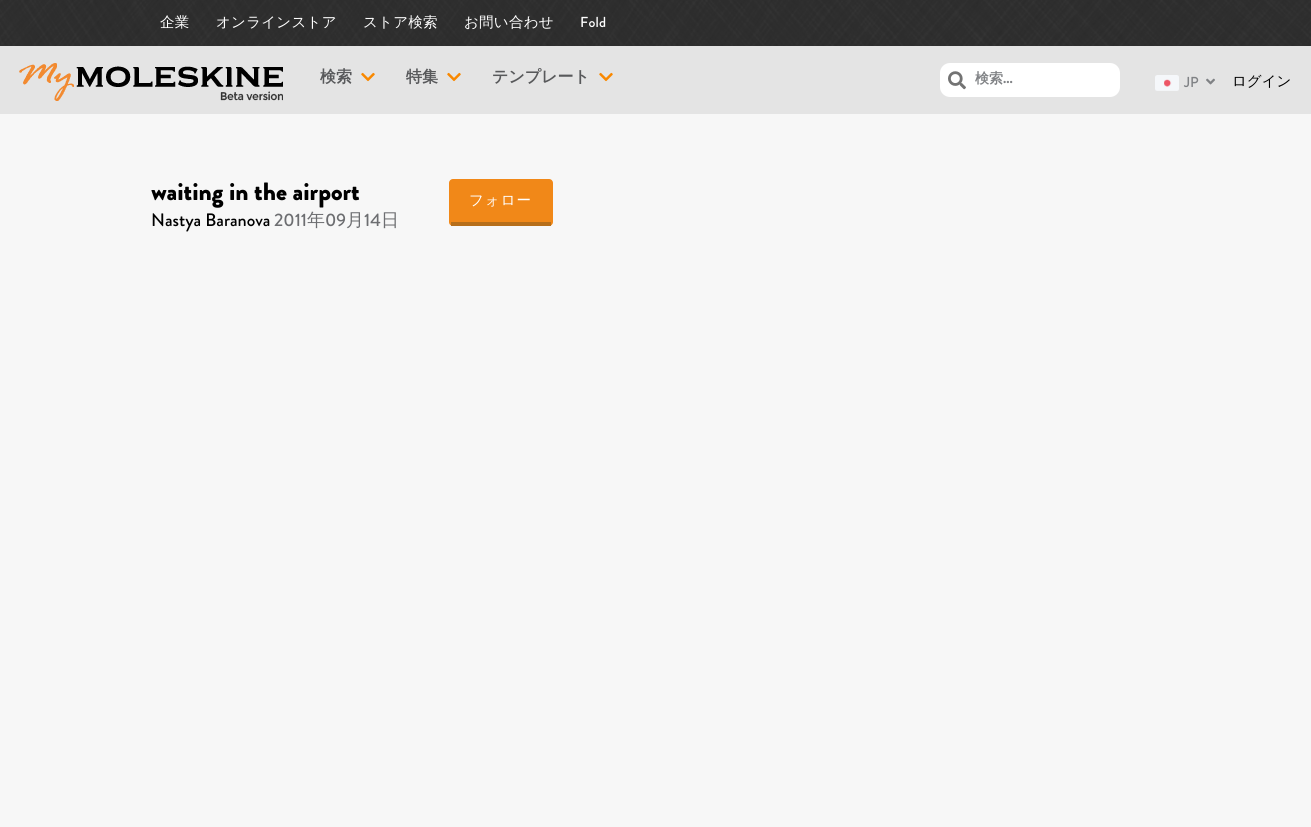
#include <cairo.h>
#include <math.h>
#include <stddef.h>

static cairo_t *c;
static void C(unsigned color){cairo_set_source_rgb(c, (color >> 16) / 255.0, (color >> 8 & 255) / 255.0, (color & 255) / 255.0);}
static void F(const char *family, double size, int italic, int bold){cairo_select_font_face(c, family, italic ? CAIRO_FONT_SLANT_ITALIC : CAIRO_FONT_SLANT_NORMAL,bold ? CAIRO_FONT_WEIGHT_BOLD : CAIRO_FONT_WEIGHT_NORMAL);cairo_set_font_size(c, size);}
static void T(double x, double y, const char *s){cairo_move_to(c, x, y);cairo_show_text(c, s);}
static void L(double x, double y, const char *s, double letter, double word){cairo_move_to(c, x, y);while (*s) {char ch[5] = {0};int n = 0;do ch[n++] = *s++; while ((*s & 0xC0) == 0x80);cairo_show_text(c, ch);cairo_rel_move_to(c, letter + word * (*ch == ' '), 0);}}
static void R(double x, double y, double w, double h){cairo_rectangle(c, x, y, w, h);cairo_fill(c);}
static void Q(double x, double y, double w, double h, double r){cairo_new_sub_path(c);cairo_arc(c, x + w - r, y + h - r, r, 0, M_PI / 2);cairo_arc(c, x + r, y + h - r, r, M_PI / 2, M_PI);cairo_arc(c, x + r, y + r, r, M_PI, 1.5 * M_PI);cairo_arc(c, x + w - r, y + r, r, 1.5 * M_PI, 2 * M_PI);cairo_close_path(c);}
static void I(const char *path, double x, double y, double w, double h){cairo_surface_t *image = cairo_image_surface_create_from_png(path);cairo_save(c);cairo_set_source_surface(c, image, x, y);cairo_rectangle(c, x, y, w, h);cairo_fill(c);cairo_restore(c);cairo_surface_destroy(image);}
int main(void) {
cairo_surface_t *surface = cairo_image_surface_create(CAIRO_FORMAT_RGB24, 1311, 827);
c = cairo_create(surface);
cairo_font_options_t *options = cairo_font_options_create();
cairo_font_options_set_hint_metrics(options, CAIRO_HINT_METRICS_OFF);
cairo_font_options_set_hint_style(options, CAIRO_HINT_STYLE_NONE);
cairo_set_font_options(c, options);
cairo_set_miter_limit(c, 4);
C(0xf7f7f7);
cairo_paint(c);
C(0xe4e4e4);
R(0,46,1311,68);
I("1.png",0,0,1311,46);
F("WenQuanYi Zen Hei Medium",14.5,0,0);
C(0xffffff);
L(160,27,"企業",.25,0);
L(216,27,"オンラインストア",.25,0);
L(363,27,"ストア検索",.25,0);
L(464,27,"お問い合わせ",.25,0);
F("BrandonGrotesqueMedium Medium",14.5,0,0);
L(580,27,"Fold",.25,0);
I("2.png",19,63,264,38);
F("WenQuanYi Zen Hei",16,0,1);
C(0x58595b);
T(320,82,"検索");
I("3.png",361,72,14,10);
T(406,82,"特集");
I("3.png",447,72,14,10);
T(492,82,"テンプレート");
I("3.png",599,72,14,10);
C(0xffffff);
Q(940,63,180,34,10);
cairo_fill(c);
I("4.png",948,71,18,19);
F("WenQuanYi Zen Hei",14,0,1);
C(0x808285);
T(975,83,"検索");
F("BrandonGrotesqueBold",14,0,1);
T(1003,83,"...");
I("5.png",1155,75,24,16);
F("BrandonGrotesqueMedium Medium",14.5,0,0);
T(1184,87,"JP");
I("6.png",1206,78,9,7);
F("WenQuanYi Zen Hei Medium",14.5,0,0);
C(0x000000);
T(1232,86,"ログイン");
F("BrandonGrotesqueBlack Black",25,0,0);
T(151,200,"waiting in the airport");
F("BrandonGrotesqueMedium Medium",18,0,0);
T(151,226,"Nastya Baranova");
C(0x6d6e71);
T(274,226,"2011");
F("WenQuanYi Zen Hei Medium",18,0,0);
T(307,226,"年");
F("BrandonGrotesqueMedium Medium",18,0,0);
T(325,226,"09");
F("WenQuanYi Zen Hei Medium",18,0,0);
T(346,226,"月");
F("BrandonGrotesqueMedium Medium",18,0,0);
T(364,226,"14");
F("WenQuanYi Zen Hei Medium",18,0,0);
T(381,226,"日");
C(0xf18818);
Q(449,179,104,47,4);
cairo_fill(c);
C(0xb66e1a);
R(451,222,100,4);
F("WenQuanYi Zen Hei Medium",14.5,0,0);
C(0xffffff);
L(469,205,"フォロー",1,0);
cairo_surface_write_to_png(surface, "o.png");
cairo_font_options_destroy(options);
cairo_destroy(c);
cairo_surface_destroy(surface);
return 0;
}
